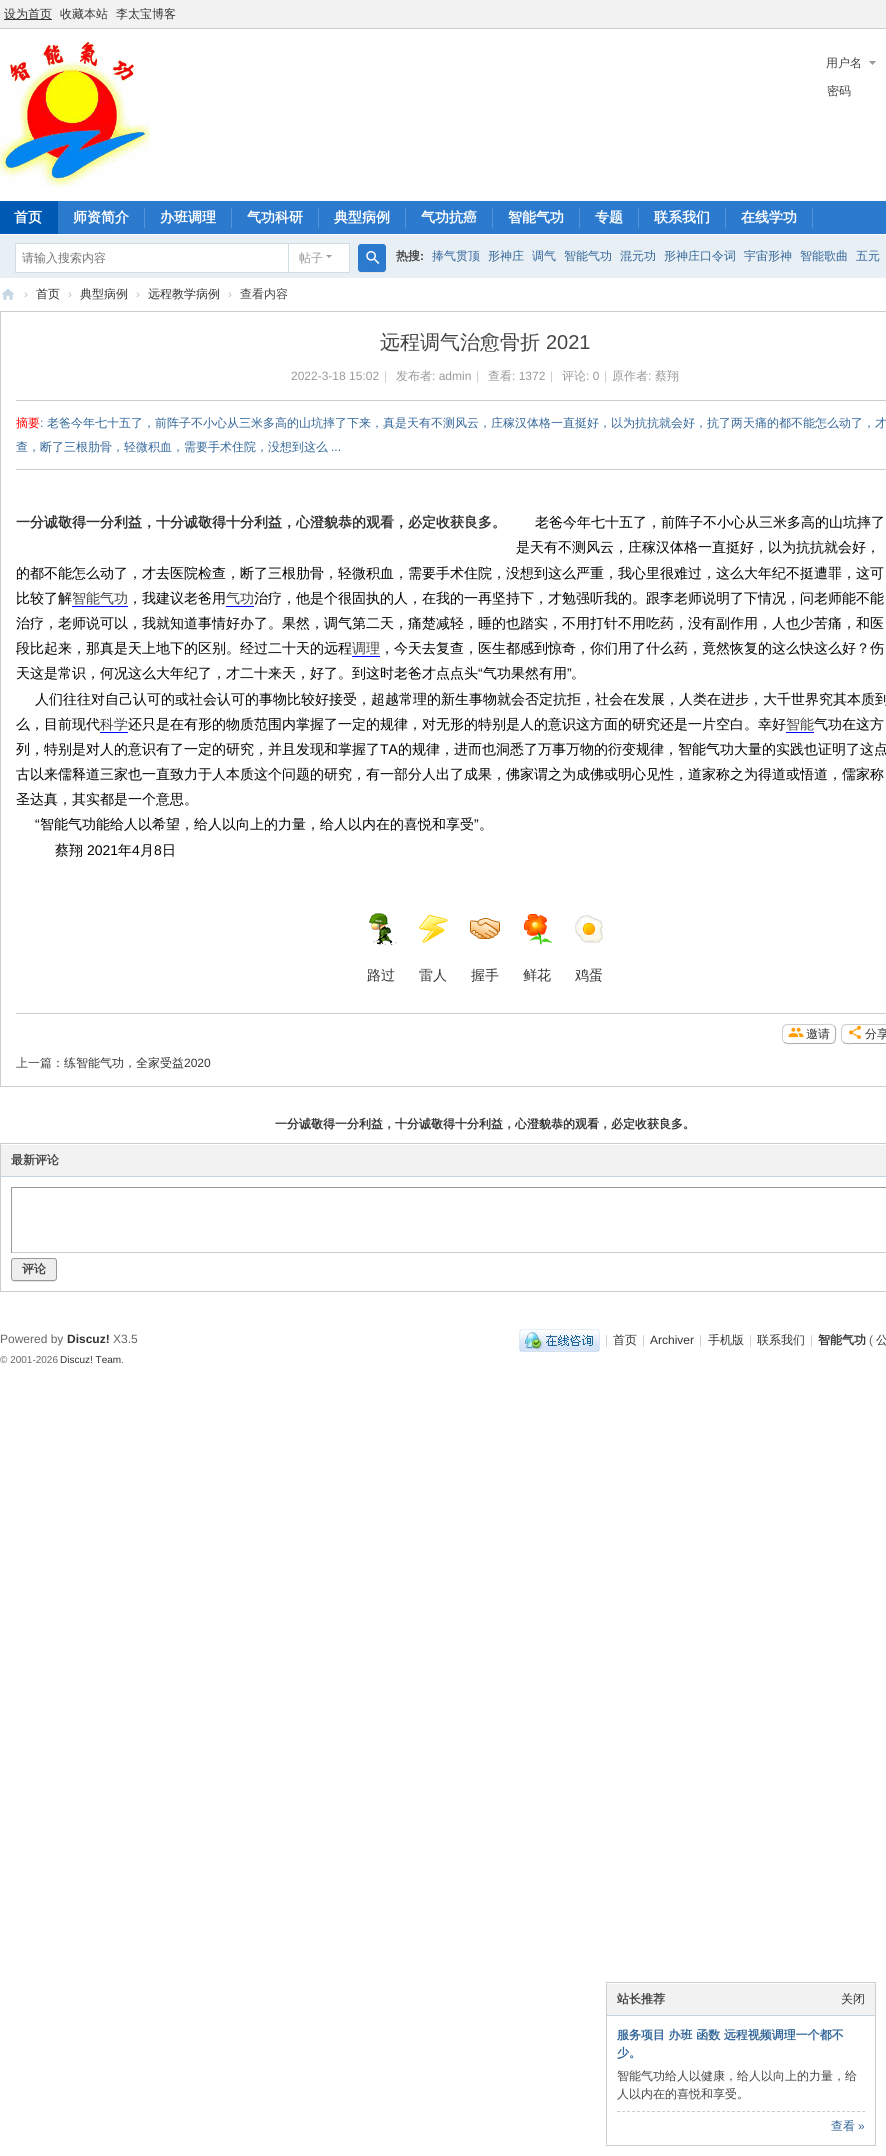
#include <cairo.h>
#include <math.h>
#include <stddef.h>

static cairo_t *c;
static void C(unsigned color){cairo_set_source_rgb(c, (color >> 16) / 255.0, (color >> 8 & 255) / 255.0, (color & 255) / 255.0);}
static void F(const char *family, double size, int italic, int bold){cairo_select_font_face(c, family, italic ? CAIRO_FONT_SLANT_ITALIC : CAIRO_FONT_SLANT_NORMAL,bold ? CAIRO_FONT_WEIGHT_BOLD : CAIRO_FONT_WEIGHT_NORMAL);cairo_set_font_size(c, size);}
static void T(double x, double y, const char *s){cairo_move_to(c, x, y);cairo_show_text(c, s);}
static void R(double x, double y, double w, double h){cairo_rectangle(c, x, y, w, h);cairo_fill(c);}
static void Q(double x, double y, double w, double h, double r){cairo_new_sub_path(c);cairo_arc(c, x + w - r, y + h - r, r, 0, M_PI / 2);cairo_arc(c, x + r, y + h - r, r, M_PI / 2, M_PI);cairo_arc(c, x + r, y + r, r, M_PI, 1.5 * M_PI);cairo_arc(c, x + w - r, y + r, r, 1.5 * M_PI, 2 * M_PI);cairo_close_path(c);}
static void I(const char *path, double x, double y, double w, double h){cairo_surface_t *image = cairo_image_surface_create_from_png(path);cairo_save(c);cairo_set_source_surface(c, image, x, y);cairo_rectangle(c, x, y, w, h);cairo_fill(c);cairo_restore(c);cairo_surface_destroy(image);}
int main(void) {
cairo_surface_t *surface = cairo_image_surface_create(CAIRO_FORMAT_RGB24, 886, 2156);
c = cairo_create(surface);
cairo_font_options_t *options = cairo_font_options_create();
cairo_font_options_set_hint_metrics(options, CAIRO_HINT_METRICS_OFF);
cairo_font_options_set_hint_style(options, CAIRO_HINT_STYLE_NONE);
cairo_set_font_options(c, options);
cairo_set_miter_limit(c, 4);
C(0xffffff);
cairo_paint(c);
C(0xf2f2f2);
R(0,0,886,28);
C(0xcdcdcd);
R(0,28,886,1);
C(0x333333);
R(4,19,48,1);
F("WenQuanYi Zen Hei Medium",12,0,0);
T(4,18,"设为首页");
T(60,18,"收藏本站");
T(116,18,"李太宝博客");
I("1.png",0,41,150,147);
C(0x999999);
cairo_new_path(c);
cairo_move_to(c,876,61);
cairo_line_to(c,869,61);
cairo_line_to(c,872.5,65);
cairo_close_path(c);
cairo_fill(c);
C(0x444444);
T(826,67,"用户名");
T(827,95,"密码");
C(0x2b7acd);
R(58,201,828,33);
C(0x005ab4);
R(0,201,58,33);
F("WenQuanYi Zen Hei",14,0,1);
C(0xffffff);
T(14,222,"首页");
C(0x5595d7);
R(144,208,1,20);
C(0xffffff);
T(73,222,"师资简介");
C(0x5595d7);
R(231,208,1,20);
C(0xffffff);
T(160,222,"办班调理");
C(0x5595d7);
R(318,208,1,20);
C(0xffffff);
T(247,222,"气功科研");
C(0x5595d7);
R(405,208,1,20);
C(0xffffff);
T(334,222,"典型病例");
C(0x5595d7);
R(492,208,1,20);
C(0xffffff);
T(421,222,"气功抗癌");
C(0x5595d7);
R(579,208,1,20);
C(0xffffff);
T(508,222,"智能气功");
C(0x5595d7);
R(638,208,1,20);
C(0xffffff);
T(595,222,"专题");
C(0x5595d7);
R(725,208,1,20);
C(0xffffff);
T(654,222,"联系我们");
C(0x5595d7);
R(812,208,1,20);
C(0xffffff);
T(741,222,"在线学功");
C(0xe8eff5);
R(0,235,886,43);
C(0xcfdee3);
R(287,243,63,1);
R(349,243,1,30);
R(287,272,63,1);
C(0xffffff);
cairo_rectangle(c,15.5,243.5,273,29);
cairo_fill_preserve(c);
C(0xcfdee3);
cairo_set_line_width(c,1);
cairo_stroke(c);
F("WenQuanYi Zen Hei Medium",12,0,0);
C(0x757575);
T(22,262,"请输入搜索内容");
C(0xffffff);
R(289,244,60,28);
C(0x999999);
T(299,262,"帖子");
cairo_new_path(c);
cairo_move_to(c,326,255);
cairo_line_to(c,332,255);
cairo_line_to(c,329,258);
cairo_close_path(c);
cairo_fill(c);
C(0xe5e5e5);
cairo_new_path(c);
cairo_move_to(c,358,269);
cairo_curve_to(c,358,273.5,361,273,364.5,273);
cairo_line_to(c,379.5,273);
cairo_curve_to(c,383,273,386,273.5,386,269);
cairo_curve_to(c,386,270.5,384.5,272,383,272);
cairo_line_to(c,361,272);
cairo_curve_to(c,359.5,272,358,270.5,358,269);
cairo_close_path(c);
cairo_fill(c);
C(0x2b7acd);
Q(358,244,28,28,3);
cairo_fill(c);
I("2.png",366,251,14,13);
F("WenQuanYi Zen Hei",12,0,1);
C(0x444444);
T(396,260,"热搜");
F("Liberation Sans",12,0,1);
T(420,260,":");
F("WenQuanYi Zen Hei Medium",12,0,0);
C(0x336699);
T(432,260,"捧气贯顶");
T(488,260,"形神庄");
T(532,260,"调气");
T(564,260,"智能气功");
T(620,260,"混元功");
T(664,260,"形神庄口令词");
T(744,260,"宇宙形神");
T(800,260,"智能歌曲");
T(856,260,"五元");
I("3.png",1,288,14,12);
F("Liberation Sans",12,0,0);
C(0xbdbdbd);
T(24,298,"›");
F("WenQuanYi Zen Hei Medium",12,0,0);
C(0x333333);
T(36,298,"首页");
F("Liberation Sans",12,0,0);
C(0xbdbdbd);
T(68,298,"›");
F("WenQuanYi Zen Hei Medium",12,0,0);
C(0x333333);
T(80,298,"典型病例");
F("Liberation Sans",12,0,0);
C(0xbdbdbd);
T(136,298,"›");
F("WenQuanYi Zen Hei Medium",12,0,0);
C(0x333333);
T(148,298,"远程教学病例");
F("Liberation Sans",12,0,0);
C(0xbdbdbd);
T(228,298,"›");
F("WenQuanYi Zen Hei Medium",12,0,0);
C(0x444444);
T(240,298,"查看内容");
cairo_rectangle(c,.5,311.5,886,775);
C(0xcdcdcd);
cairo_stroke(c);
R(16,400,870,1);
F("WenQuanYi Zen Hei Medium",20,0,0);
C(0x444444);
T(380,349,"远程调气治愈骨折");
F("Liberation Sans",20,0,0);
T(546,349,"2021");
F("Liberation Sans",12,0,0);
C(0x999999);
T(291,380,"2022-3-18 15:02");
C(0xcccccc);
T(384,380,"|");
F("WenQuanYi Zen Hei Medium",12,0,0);
C(0x999999);
T(396,380,"发布者");
F("Liberation Sans",12,0,0);
T(432,380,": admin");
C(0xcccccc);
T(476,380,"|");
F("WenQuanYi Zen Hei Medium",12,0,0);
C(0x999999);
T(488,380,"查看");
F("Liberation Sans",12,0,0);
T(512,380,": 1372");
C(0xcccccc);
T(550,380,"|");
F("WenQuanYi Zen Hei Medium",12,0,0);
C(0x999999);
T(562,380,"评论");
F("Liberation Sans",12,0,0);
T(586,380,": 0");
C(0xcccccc);
T(604,380,"|");
F("WenQuanYi Zen Hei Medium",12,0,0);
C(0x999999);
T(612,380,"原作者");
F("Liberation Sans",12,0,0);
T(648,380,":");
F("WenQuanYi Zen Hei Medium",12,0,0);
T(655,380,"蔡翔");
C(0xcdcdcd);
R(16,469,870,1);
C(0xff0000);
T(16,427,"摘要");
F("Liberation Sans",12,0,0);
C(0x336699);
T(40,427,":");
F("WenQuanYi Zen Hei Medium",12,0,0);
T(47,427,"老爸今年七十五了，前阵子不小心从三米多高的山坑摔了下来，真是天有不测风云，庄稼汉体格一直挺好，以为抗抗就会好，抗了两天痛的都不能怎么动了，才");
T(16,451,"查，断了三根肋骨，轻微积血，需要手术住院，没想到这么");
F("Liberation Sans",12,0,0);
T(331,451,"...");
F("WenQuanYi Zen Hei",14,0,1);
C(0x333333);
T(16,527,"一分诚敬得一分利益，十分诚敬得十分利益，心澄貌恭的观看，必定收获良多。");
F("WenQuanYi Zen Hei Medium",14,0,0);
C(0x000000);
T(535,527,"老爸今年七十五了，前阵子不小心从三米多高的山坑摔了");
T(516,552,"是天有不测风云，庄稼汉体格一直挺好，以为抗抗就会好，");
T(16,578,"的都不能怎么动了，才去医院检查，断了三根肋骨，轻微积血，需要手术住院，没想到这么严重，我心里很难过，这么大年纪不挺遭罪，这可");
T(16,603,"比较了解");
C(0x444444);
T(72,603,"智能气功");
C(0x0000ff);
R(72,606,56,1);
C(0x000000);
T(128,603,"，我建议老爸用");
C(0x444444);
T(226,603,"气功");
C(0x0000ff);
R(226,606,28,1);
C(0x000000);
T(254,603,"治疗，他是个很固执的人，在我的一再坚持下，才勉强听我的。跟李老师说明了下情况，问老师能不能");
T(16,628,"治疗，老师说可以，我就知道事情好办了。果然，调气第二天，痛楚减轻，睡的也踏实，不用打针不用吃药，没有副作用，人也少苦痛，和医");
T(16,653,"段比起来，那真是天上地下的区别。经过二十天的远程");
C(0x444444);
T(352,653,"调理");
C(0x0000ff);
R(352,656,28,1);
C(0x000000);
T(380,653,"，今天去复查，医生都感到惊奇，你们用了什么药，竟然恢复的这么快这么好？伤");
T(16,678,"天这是常识，何况这么大年纪了，才二十来天，好了。到这时老爸才点点头");
F("Liberation Sans",14,0,0);
T(478,678,"“");
F("WenQuanYi Zen Hei Medium",14,0,0);
T(483,678,"气功果然有用");
F("Liberation Sans",14,0,0);
T(567,678,"”");
F("WenQuanYi Zen Hei Medium",14,0,0);
T(571,678,"。");
T(35,704,"人们往往对自己认可的或社会认可的事物比较好接受，超越常理的新生事物就会否定抗拒，社会在发展，人类在进步，大千世界究其本质到");
T(16,729,"么，目前现代");
C(0x444444);
T(100,729,"科学");
C(0x0000ff);
R(100,732,28,1);
C(0x000000);
T(128,729,"还只是在有形的物质范围内掌握了一定的规律，对无形的特别是人的意识这方面的研究还是一片空白。幸好");
C(0x444444);
T(786,729,"智能");
C(0x0000ff);
R(786,732,28,1);
C(0x000000);
T(814,729,"气功在这方");
T(16,754,"列，特别是对人的意识有了一定的研究，并且发现和掌握了");
F("Liberation Sans",14,0,0);
T(380,754,"TA");
F("WenQuanYi Zen Hei Medium",14,0,0);
T(398,754,"的规律，进而也洞悉了万事万物的衍变规律，智能气功大量的实践也证明了这点");
T(16,779,"古以来儒释道三家也一直致力于人本质这个问题的研究，有一部分人出了成果，佛家谓之为成佛或明心见性，道家称之为得道或悟道，儒家称");
T(16,804,"圣达真，其实都是一个意思。");
F("Liberation Sans",14,0,0);
T(35,829,"“");
F("WenQuanYi Zen Hei Medium",14,0,0);
T(40,829,"智能气功能给人以希望，给人以向上的力量，给人以内在的喜悦和享受");
F("Liberation Sans",14,0,0);
T(474,829,"”");
F("WenQuanYi Zen Hei Medium",14,0,0);
T(479,829,"。");
T(55,855,"蔡翔");
F("Liberation Sans",14,0,0);
T(87,855,"2021");
F("WenQuanYi Zen Hei Medium",14,0,0);
T(118,855,"年");
F("Liberation Sans",14,0,0);
T(132,855,"4");
F("WenQuanYi Zen Hei Medium",14,0,0);
T(140,855,"月");
F("Liberation Sans",14,0,0);
T(154,855,"8");
F("WenQuanYi Zen Hei Medium",14,0,0);
T(162,855,"日");
I("4.png",369,913,28,32);
C(0x333333);
T(367,980,"路过");
I("5.png",419,915,29,28);
T(419,980,"雷人");
I("6.png",470,918,30,21);
T(471,980,"握手");
I("7.png",524,914,28,31);
T(523,980,"鲜花");
I("8.png",575,915,28,28);
T(575,980,"鸡蛋");
C(0xcdcdcd);
R(16,1013,870,1);
cairo_new_path(c);
cairo_move_to(c,834,1026);
cairo_curve_to(c,836.5,1028,835.5,1031.5,835.5,1034);
cairo_curve_to(c,835.5,1044.5,834.5,1043.5,823.5,1043.5);
cairo_line_to(c,794.5,1043.5);
cairo_curve_to(c,792,1043.5,786.5,1044.5,784,1042);
C(0xa9a9a9);
cairo_stroke(c);
cairo_new_path(c);
cairo_move_to(c,784,1042);
cairo_curve_to(c,781.5,1040,782.5,1036.5,782.5,1034);
cairo_curve_to(c,782.5,1023.5,783.5,1024.5,794.5,1024.5);
cairo_line_to(c,823.5,1024.5);
cairo_curve_to(c,826,1024.5,831.5,1023.5,834,1026);
C(0xcccccc);
cairo_stroke(c);
I("9.png",788,1027,16,11);
F("WenQuanYi Zen Hei Medium",12,0,0);
C(0x333333);
T(806,1038,"邀请");
cairo_new_path(c);
cairo_move_to(c,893,1026);
cairo_curve_to(c,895.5,1028,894.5,1031.5,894.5,1034);
cairo_curve_to(c,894.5,1044.5,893.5,1043.5,882.5,1043.5);
cairo_line_to(c,853.5,1043.5);
cairo_curve_to(c,851,1043.5,845.5,1044.5,843,1042);
C(0xa9a9a9);
cairo_stroke(c);
cairo_new_path(c);
cairo_move_to(c,843,1042);
cairo_curve_to(c,840.5,1040,841.5,1036.5,841.5,1034);
cairo_curve_to(c,841.5,1023.5,842.5,1024.5,853.5,1024.5);
cairo_line_to(c,882.5,1024.5);
cairo_curve_to(c,885,1024.5,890.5,1023.5,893,1026);
C(0xcccccc);
cairo_stroke(c);
I("10.png",849,1025,12,14);
C(0x333333);
T(865,1038,"分享");
C(0x444444);
T(16,1067,"上一篇：");
C(0x333333);
T(64,1067,"练智能气功，全家受益");
F("Liberation Sans",12,0,0);
T(184,1067,"2020");
F("WenQuanYi Zen Hei",12,0,1);
T(275,1128,"一分诚敬得一分利益，十分诚敬得十分利益，心澄貌恭的观看，必定收获良多。");
cairo_rectangle(c,.5,1143.5,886,148);
C(0xcdcdcd);
cairo_stroke(c);
C(0xf2f2f2);
R(1,1145,885,31);
C(0xc2d5e3);
R(1,1176,885,1);
C(0x444444);
T(11,1164,"最新评论");
C(0x999999);
R(11,1187,875,1);
C(0xcccccc);
R(11,1252,875,1);
C(0x999999);
R(11,1187,1,66);
C(0xe5e5e5);
cairo_new_path(c);
cairo_move_to(c,11,1278);
cairo_curve_to(c,11,1283,16,1282,21,1282);
cairo_line_to(c,47,1282);
cairo_curve_to(c,52,1282,57,1283,57,1278);
cairo_curve_to(c,57,1280,56,1281,54,1281);
cairo_line_to(c,14,1281);
cairo_curve_to(c,12,1281,11,1280,11,1278);
cairo_close_path(c);
cairo_fill(c);
C(0xeeeeee);
Q(11.5,1258.5,45,22,2.5);
cairo_fill_preserve(c);
C(0x999999);
cairo_stroke(c);
C(0x444444);
T(22,1273,"评论");
F("Liberation Sans",12,0,0);
C(0x666666);
T(0,1343,"Powered by");
F("Liberation Sans",12,0,1);
C(0x333333);
T(67,1343,"Discuz!");
F("Liberation Sans",12,0,0);
C(0x666666);
T(113,1343,"X3.5");
F("Liberation Sans",10,0,0);
T(0,1363,"© 2001-2026");
C(0x333333);
T(60,1363,"Discuz! Team");
C(0x666666);
T(121,1363,".");
I("11.png",519,1329,81,23);
F("Liberation Sans",12,0,0);
C(0xcccccc);
T(605,1344,"|");
F("WenQuanYi Zen Hei Medium",12,0,0);
C(0x333333);
T(613,1344,"首页");
F("Liberation Sans",12,0,0);
C(0xcccccc);
T(642,1344,"|");
C(0x333333);
T(650,1344,"Archiver");
C(0xcccccc);
T(699,1344,"|");
F("WenQuanYi Zen Hei Medium",12,0,0);
C(0x333333);
T(708,1344,"手机版");
F("Liberation Sans",12,0,0);
C(0xcccccc);
T(749,1344,"|");
F("WenQuanYi Zen Hei Medium",12,0,0);
C(0x333333);
T(757,1344,"联系我们");
F("Liberation Sans",12,0,0);
C(0xcccccc);
T(810,1344,"|");
F("WenQuanYi Zen Hei",12,0,1);
C(0x333333);
T(818,1344,"智能气功");
F("Liberation Sans",12,0,0);
C(0x666666);
T(869,1344,"(");
F("WenQuanYi Zen Hei Medium",12,0,0);
C(0x333333);
T(876,1344,"公");
cairo_rectangle(c,606.5,1982.5,269,163);
C(0xcdcdcd);
cairo_stroke(c);
C(0xf2f2f2);
R(607,1984,268,31);
C(0xc2d5e3);
R(607,2015,268,1);
F("WenQuanYi Zen Hei",12,0,1);
C(0x444444);
T(617,2003,"站长推荐");
F("WenQuanYi Zen Hei Medium",12,0,0);
C(0x333333);
T(841,2003,"关闭");
cairo_new_path(c);
cairo_move_to(c,617,2111.5);
cairo_line_to(c,865,2111.5);
C(0xcdcdcd);
cairo_set_dash(c,(double[]){3,2},2,0);
cairo_stroke(c);
F("WenQuanYi Zen Hei",12,0,1);
C(0x336699);
T(617,2039,"服务项目 办班 函数 远程视频调理一个都不");
T(617,2057,"少。");
F("WenQuanYi Zen Hei Medium",12,0,0);
C(0x444444);
T(617,2080,"智能气功给人以健康，给人以向上的力量，给");
T(617,2098,"人以内在的喜悦和享受。");
C(0x336699);
T(831,2130,"查看");
F("Liberation Sans",12,0,0);
T(858,2130,"»");
cairo_surface_write_to_png(surface, "o.png");
cairo_font_options_destroy(options);
cairo_destroy(c);
cairo_surface_destroy(surface);
return 0;
}
